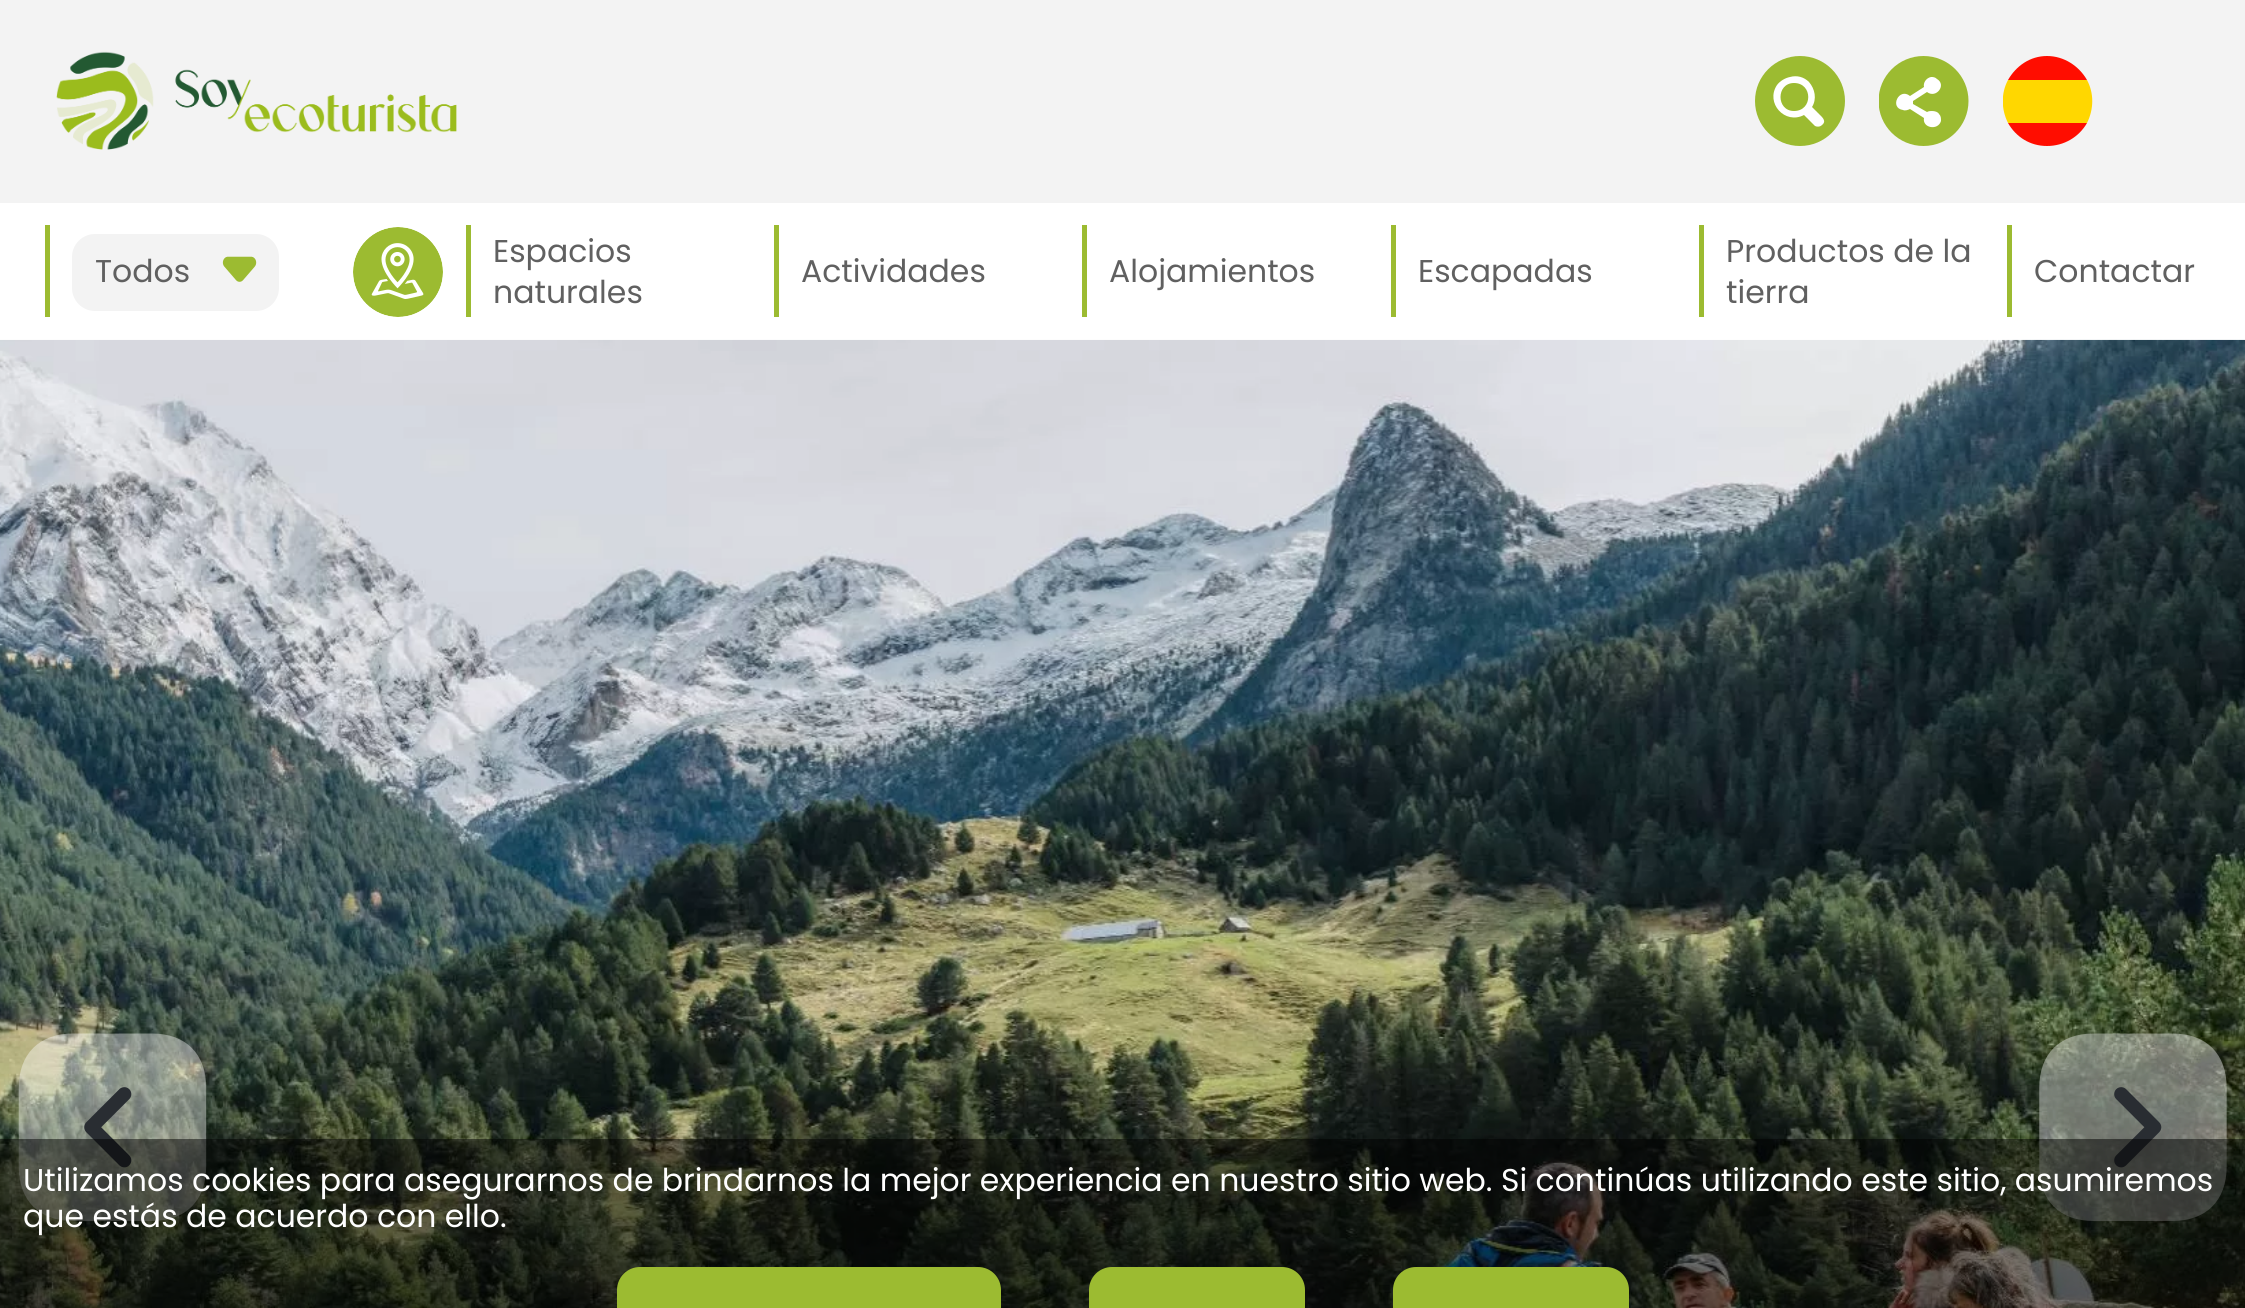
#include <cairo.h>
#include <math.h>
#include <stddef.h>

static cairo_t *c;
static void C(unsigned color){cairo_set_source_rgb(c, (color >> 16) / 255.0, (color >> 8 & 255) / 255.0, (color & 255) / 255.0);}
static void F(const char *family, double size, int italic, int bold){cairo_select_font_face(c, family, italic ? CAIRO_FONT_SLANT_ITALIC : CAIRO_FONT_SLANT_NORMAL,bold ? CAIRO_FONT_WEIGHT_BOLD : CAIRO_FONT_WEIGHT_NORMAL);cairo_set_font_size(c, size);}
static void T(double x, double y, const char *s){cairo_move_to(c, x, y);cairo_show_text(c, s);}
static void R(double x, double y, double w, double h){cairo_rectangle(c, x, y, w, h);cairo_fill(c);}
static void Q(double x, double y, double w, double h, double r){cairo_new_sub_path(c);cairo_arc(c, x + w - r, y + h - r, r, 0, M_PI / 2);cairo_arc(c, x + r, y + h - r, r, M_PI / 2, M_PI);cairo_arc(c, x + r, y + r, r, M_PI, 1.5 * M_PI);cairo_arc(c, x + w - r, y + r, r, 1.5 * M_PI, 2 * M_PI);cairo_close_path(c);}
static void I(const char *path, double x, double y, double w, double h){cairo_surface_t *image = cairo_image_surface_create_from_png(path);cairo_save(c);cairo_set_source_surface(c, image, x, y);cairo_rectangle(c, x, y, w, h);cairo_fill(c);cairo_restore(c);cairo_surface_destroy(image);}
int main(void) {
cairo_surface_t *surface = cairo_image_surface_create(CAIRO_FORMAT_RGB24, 2245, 1308);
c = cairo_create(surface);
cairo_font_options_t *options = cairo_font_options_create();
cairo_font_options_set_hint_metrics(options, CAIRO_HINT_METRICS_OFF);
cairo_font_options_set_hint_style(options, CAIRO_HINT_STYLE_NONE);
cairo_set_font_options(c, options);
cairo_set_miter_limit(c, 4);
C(0xffffff);
cairo_paint(c);
C(0xf3f3f3);
R(0,0,2245,203);
I("1.png",56,51,401,99);
C(0x9cbb31);
cairo_arc(c,1800,101,45,0,2 * M_PI);
cairo_fill(c);
C(0xffffff);
cairo_set_fill_rule(c,CAIRO_FILL_RULE_EVEN_ODD);
cairo_new_path(c);
cairo_move_to(c,1804,115);
cairo_curve_to(c,1785,125,1765,103,1777,85);
cairo_curve_to(c,1780,81,1785,78,1790,77);
cairo_curve_to(c,1797,75,1804,77,1809,82);
cairo_curve_to(c,1815,89,1817,99,1812,107);
cairo_line_to(c,1819,114);
cairo_curve_to(c,1822,117,1827,121,1822,125);
cairo_curve_to(c,1820,127,1817,127,1815,126);
cairo_close_path(c);
cairo_move_to(c,1794,83);
cairo_curve_to(c,1776,83,1776,111,1794,111);
cairo_curve_to(c,1813,111,1813,83,1794,83);
cairo_close_path(c);
cairo_fill(c);
cairo_save(c);
cairo_set_fill_rule(c,CAIRO_FILL_RULE_WINDING);
cairo_rectangle(c,1879,56,90,90);
cairo_clip(c);
C(0x9cbb31);
cairo_arc(c,1923.5,101,45,0,2 * M_PI);
cairo_fill(c);
cairo_restore(c);
cairo_set_fill_rule(c,CAIRO_FILL_RULE_WINDING);
cairo_new_path(c);
cairo_move_to(c,1932,111);
cairo_curve_to(c,1930,111,1929,111,1927,112);
cairo_line_to(c,1913,104);
cairo_line_to(c,1913,101);
cairo_line_to(c,1927,92);
cairo_curve_to(c,1936,99,1947,85,1937,79);
cairo_curve_to(c,1935,77,1933,77,1931,77);
cairo_curve_to(c,1926,78,1923,83,1924,87);
cairo_line_to(c,1910,96);
cairo_curve_to(c,1899,87,1889,108,1903,110);
cairo_curve_to(c,1905,111,1908,110,1910,109);
cairo_line_to(c,1924,118);
cairo_curve_to(c,1922,128,1938,131,1941,121);
cairo_curve_to(c,1941,118,1941,116,1939,114);
cairo_curve_to(c,1938,112,1935,111,1932,111);
cairo_close_path(c);
cairo_fill(c);
C(0xff0d00);
cairo_new_path(c);
cairo_move_to(c,2047,56);
cairo_curve_to(c,2030,56,2016,66,2008,80);
cairo_line_to(c,2087,80);
cairo_curve_to(c,2079,66,2064,56,2047,56);
cairo_fill(c);
cairo_save(c);
cairo_rectangle(c,2003,56,90,90);
cairo_clip(c);
C(0xffd700);
cairo_new_path(c);
cairo_move_to(c,2008,123);
cairo_line_to(c,2087,123);
cairo_curve_to(c,2094,109,2094,93,2087,80);
cairo_line_to(c,2008,80);
cairo_curve_to(c,2001,93,2001,109,2008,123);
cairo_fill(c);
cairo_restore(c);
cairo_new_path(c);
cairo_move_to(c,2047,146);
cairo_curve_to(c,2064,146,2079,137,2087,123);
cairo_line_to(c,2008,123);
cairo_curve_to(c,2016,137,2030,146,2047,146);
cairo_fill(c);
C(0x9cbb31);
R(45,225,5,92);
C(0xf3f3f3);
Q(72,234,207,77,23);
cairo_fill(c);
F("Poppins",31.5,0,0);
C(0x606060);
T(95,282,"Todos");
I("2.png",222,256,35,26);
I("3.png",353,227,90,90);
C(0x9cbb31);
R(466,225,5,92);
C(0x606060);
T(493,262,"Espacios");
T(493,303,"naturales");
C(0x9cbb31);
R(774,225,5,92);
C(0x606060);
T(801,282,"Actividades");
C(0x9cbb31);
R(1082,225,5,92);
C(0x606060);
T(1109,282,"Alojamientos");
C(0x9cbb31);
R(1391,225,5,92);
C(0x606060);
T(1418,282,"Escapadas");
C(0x9cbb31);
R(1699,225,5,92);
C(0x606060);
T(1726,262,"Productos de la");
T(1726,303,"tierra");
C(0x9cbb31);
R(2007,225,5,92);
C(0x606060);
T(2034,282,"Contactar");
I("4.png",0,339,2245,969);
I("5.png",18,1033,189,188);
I("6.png",2039,1033,188,188);
cairo_set_source_rgba(c,0,0,0,0.5);
R(0,1139,2245,169);
C(0xffffff);
T(23,1191,"Utilizamos cookies para asegurarnos de brindarnos la mejor experiencia en nuestro sitio web. Si continúas utilizando este sitio, asumiremos");
T(23,1227,"que estás de acuerdo con ello.");
C(0x9cbb31);
Q(617,1267,384,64,23);
cairo_fill(c);
Q(1089,1267,216,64,23);
cairo_fill(c);
Q(1393,1267,236,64,23);
cairo_fill(c);
cairo_surface_write_to_png(surface, "o.png");
cairo_font_options_destroy(options);
cairo_destroy(c);
cairo_surface_destroy(surface);
return 0;
}
